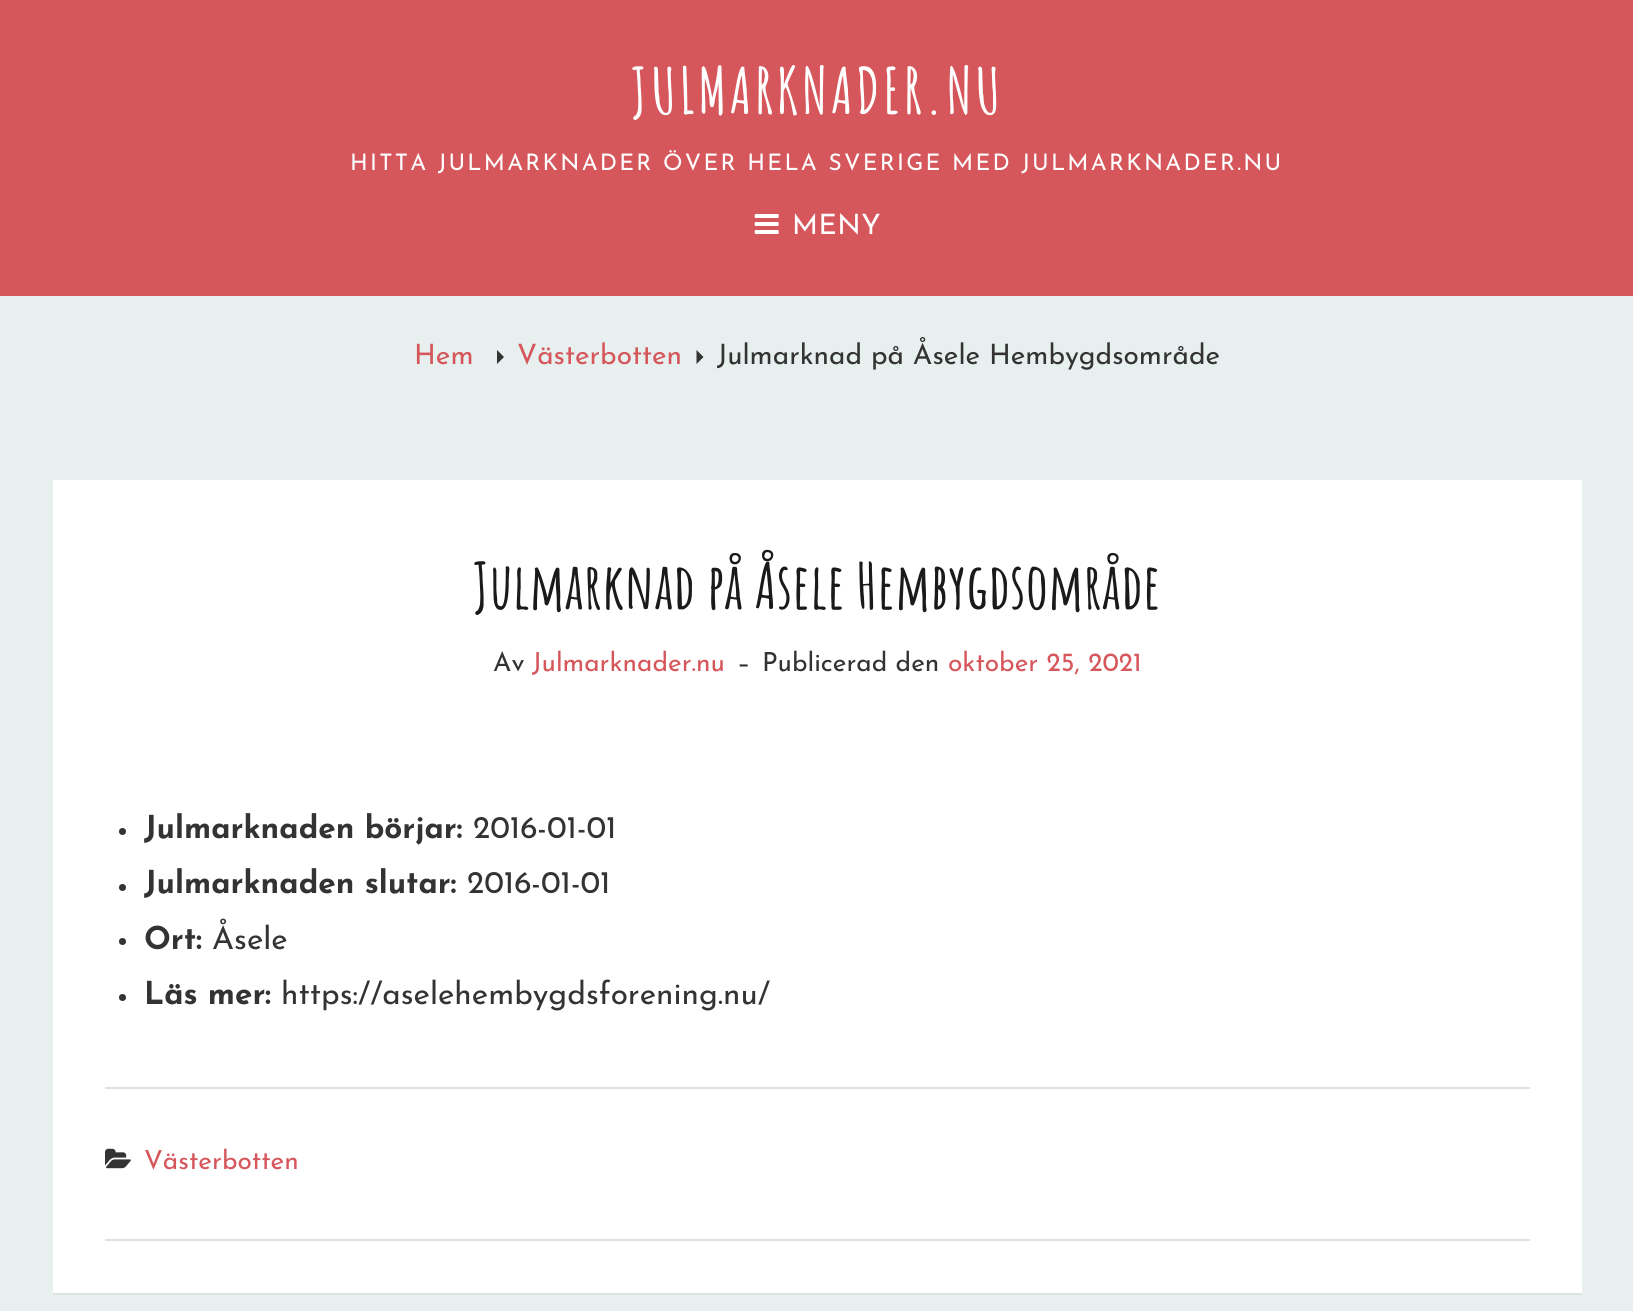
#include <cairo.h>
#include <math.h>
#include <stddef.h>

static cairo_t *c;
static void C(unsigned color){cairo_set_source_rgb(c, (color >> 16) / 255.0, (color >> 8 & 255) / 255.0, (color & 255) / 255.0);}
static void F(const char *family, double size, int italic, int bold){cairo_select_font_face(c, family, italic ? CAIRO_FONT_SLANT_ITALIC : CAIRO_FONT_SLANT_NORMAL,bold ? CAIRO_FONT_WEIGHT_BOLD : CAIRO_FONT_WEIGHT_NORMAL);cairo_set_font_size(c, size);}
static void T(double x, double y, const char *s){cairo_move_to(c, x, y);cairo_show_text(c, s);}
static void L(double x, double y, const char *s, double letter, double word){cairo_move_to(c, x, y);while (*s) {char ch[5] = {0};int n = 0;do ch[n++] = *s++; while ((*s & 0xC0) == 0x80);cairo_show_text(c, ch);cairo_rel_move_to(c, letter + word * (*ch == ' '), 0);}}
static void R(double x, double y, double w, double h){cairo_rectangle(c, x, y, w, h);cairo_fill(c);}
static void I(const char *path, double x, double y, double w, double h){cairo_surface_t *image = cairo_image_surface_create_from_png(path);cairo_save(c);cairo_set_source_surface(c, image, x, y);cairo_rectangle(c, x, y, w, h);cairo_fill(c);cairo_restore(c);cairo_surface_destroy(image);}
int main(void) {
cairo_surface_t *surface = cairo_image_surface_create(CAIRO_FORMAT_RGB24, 1633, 1311);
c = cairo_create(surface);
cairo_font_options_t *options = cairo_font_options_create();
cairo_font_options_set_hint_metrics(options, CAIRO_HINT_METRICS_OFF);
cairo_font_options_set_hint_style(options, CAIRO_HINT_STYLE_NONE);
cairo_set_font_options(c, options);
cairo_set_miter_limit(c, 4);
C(0xe8efef);
cairo_paint(c);
C(0xd6575b);
R(0,0,1633,296);
F("Amatic SC",63,0,1);
C(0xffffff);
L(631,114,"JULMARKNADER.NU",3.1,0);
F("Josefin Sans",22.75,0,0);
L(350,170,"HITTA JULMARKNADER ÖVER HELA SVERIGE MED JULMARKNADER.NU",2.27,0);
I("1.png",754,214,25,20);
F("Josefin Sans",28,0,0);
L(792,234,"MENY",.5,0);
C(0xd6575b);
T(414,364,"Hem");
C(0x333333);
cairo_new_path(c);
cairo_move_to(c,497,364);
cairo_line_to(c,497,350);
cairo_line_to(c,504,357);
cairo_close_path(c);
cairo_fill(c);
C(0xd6575b);
T(517,364,"Västerbotten");
C(0x333333);
cairo_new_path(c);
cairo_move_to(c,696.5,364);
cairo_line_to(c,696.5,350);
cairo_line_to(c,703.5,357);
cairo_close_path(c);
cairo_fill(c);
T(717,364,"Julmarknad på Åsele Hembygdsområde");
C(0xffffff);
R(53,480,1529,813);
C(0xdce3e3);
R(53,1293,1529,2);
F("Amatic SC",63,0,1);
C(0x1a1a1a);
T(473,609,"Julmarknad på Åsele Hembygdsområde");
F("Josefin Sans",26.25,0,0);
C(0x333333);
T(493,671,"Av");
C(0xd6575b);
T(532,671,"Julmarknader.nu");
C(0x333333);
T(737,671,"–");
T(762,671,"Publicerad den");
C(0xd6575b);
T(948,671,"oktober 25, 2021");
C(0x333333);
cairo_new_path(c);
cairo_arc(c,122.5,831.5,3.5,0,2 * M_PI);
cairo_fill(c);
F("Josefin Sans",31.5,0,1);
T(144,838,"Julmarknaden börjar:");
F("Josefin Sans",31.5,0,0);
T(473,838,"2016-01-01");
cairo_new_path(c);
cairo_arc(c,122.5,887.5,3.5,0,2 * M_PI);
cairo_fill(c);
F("Josefin Sans",31.5,0,1);
T(144,893,"Julmarknaden slutar:");
F("Josefin Sans",31.5,0,0);
T(467,893,"2016-01-01");
cairo_new_path(c);
cairo_arc(c,122.5,941.5,3.5,0,2 * M_PI);
cairo_fill(c);
F("Josefin Sans",31.5,0,1);
T(144,949,"Ort:");
F("Josefin Sans",31.5,0,0);
T(212,949,"Åsele");
cairo_new_path(c);
cairo_arc(c,122.5,997.5,3.5,0,2 * M_PI);
cairo_fill(c);
F("Josefin Sans",31.5,0,1);
T(144,1004,"Läs mer:");
F("Josefin Sans",31.5,0,0);
T(281,1004,"https://aselehembygdsforening.nu/");
C(0xdce3e3);
R(105,1087,1425,2);
R(105,1239,1425,2);
I("2.png",105,1148,26,21);
F("Josefin Sans",26.25,0,0);
C(0xd6575b);
T(144,1169,"Västerbotten");
cairo_surface_write_to_png(surface, "o.png");
cairo_font_options_destroy(options);
cairo_destroy(c);
cairo_surface_destroy(surface);
return 0;
}
